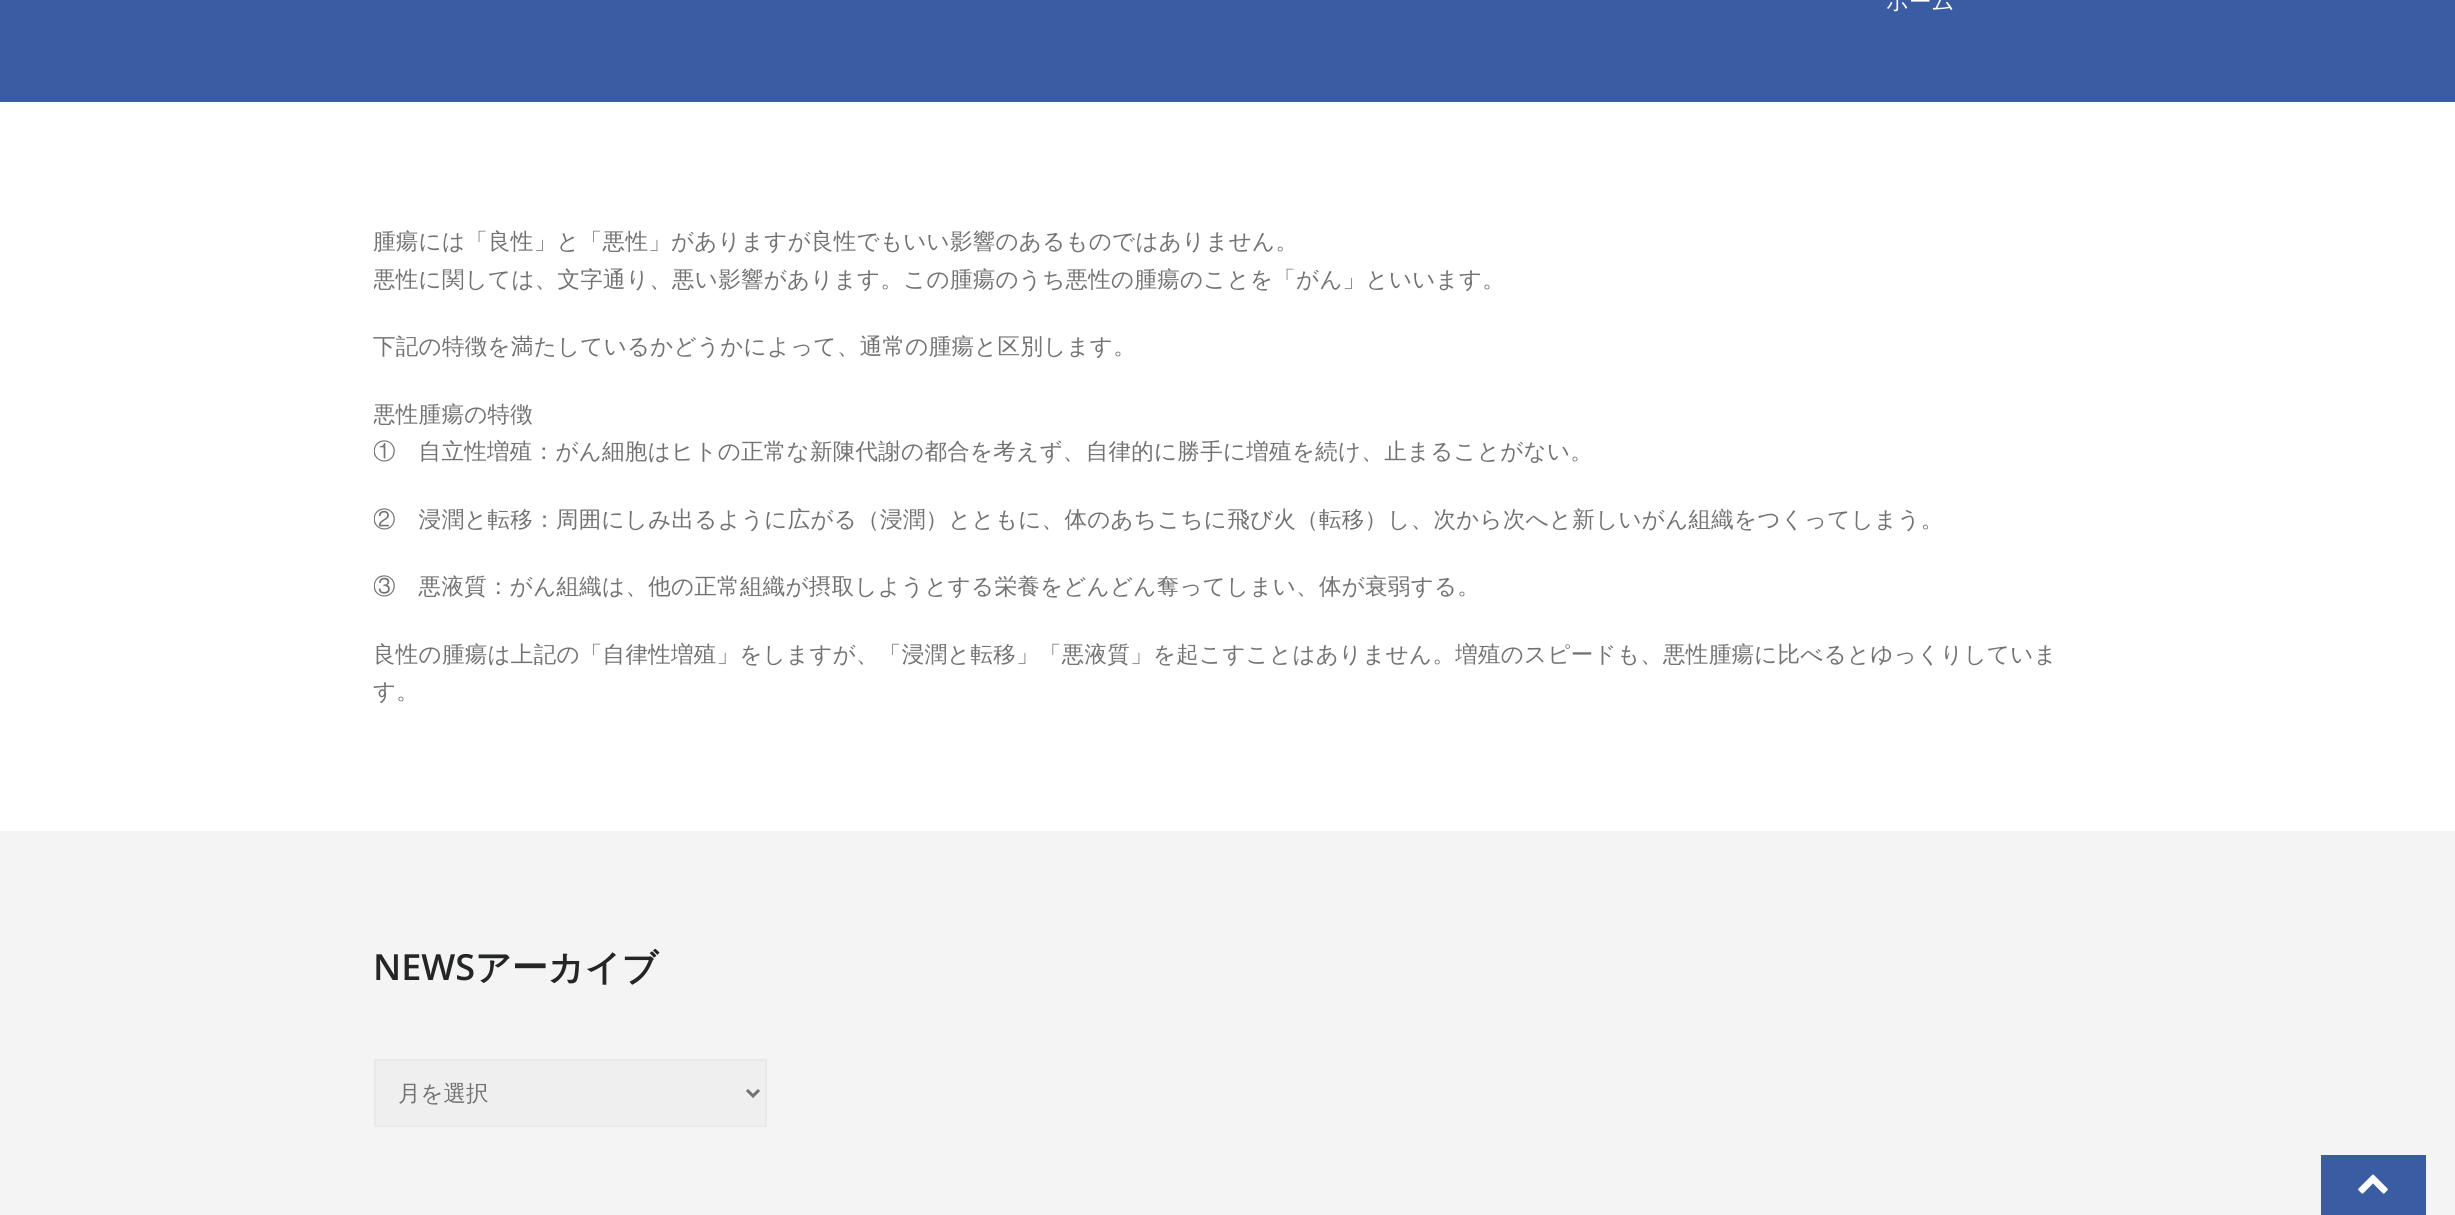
#include <cairo.h>
#include <math.h>
#include <stddef.h>

static cairo_t *c;
static void C(unsigned color){cairo_set_source_rgb(c, (color >> 16) / 255.0, (color >> 8 & 255) / 255.0, (color & 255) / 255.0);}
static void F(const char *family, double size, int italic, int bold){cairo_select_font_face(c, family, italic ? CAIRO_FONT_SLANT_ITALIC : CAIRO_FONT_SLANT_NORMAL,bold ? CAIRO_FONT_WEIGHT_BOLD : CAIRO_FONT_WEIGHT_NORMAL);cairo_set_font_size(c, size);}
static void T(double x, double y, const char *s){cairo_move_to(c, x, y);cairo_show_text(c, s);}
static void L(double x, double y, const char *s, double letter, double word){cairo_move_to(c, x, y);while (*s) {char ch[5] = {0};int n = 0;do ch[n++] = *s++; while ((*s & 0xC0) == 0x80);cairo_show_text(c, ch);cairo_rel_move_to(c, letter + word * (*ch == ' '), 0);}}
static void R(double x, double y, double w, double h){cairo_rectangle(c, x, y, w, h);cairo_fill(c);}
static void I(const char *path, double x, double y, double w, double h){cairo_surface_t *image = cairo_image_surface_create_from_png(path);cairo_save(c);cairo_set_source_surface(c, image, x, y);cairo_rectangle(c, x, y, w, h);cairo_fill(c);cairo_restore(c);cairo_surface_destroy(image);}
int main(void) {
cairo_surface_t *surface = cairo_image_surface_create(CAIRO_FORMAT_RGB24, 2455, 1215);
c = cairo_create(surface);
cairo_font_options_t *options = cairo_font_options_create();
cairo_font_options_set_hint_metrics(options, CAIRO_HINT_METRICS_OFF);
cairo_font_options_set_hint_style(options, CAIRO_HINT_STYLE_NONE);
cairo_set_font_options(c, options);
cairo_set_miter_limit(c, 4);
C(0xffffff);
cairo_paint(c);
C(0x395ca3);
R(0,0,2455,102);
F("WenQuanYi Zen Hei Medium",22.5,0,0);
C(0xffffff);
T(1886,9,"ホーム");
C(0x727272);
L(373,249,"腫瘍には「良性」と「悪性」がありますが良性でもいい影響のあるものではありません。",.3,0);
cairo_save(c);
cairo_rectangle(c,374,222,1710,608);
cairo_clip(c);
L(373,287,"悪性に関しては、文字通り、悪い影響があります。この腫瘍のうち悪性の腫瘍のことを「がん」といいます。",.3,0);
cairo_restore(c);
L(373,354,"下記の特徴を満たしているかどうかによって、通常の腫瘍と区別します。",.3,0);
cairo_save(c);
cairo_rectangle(c,374,222,1710,608);
cairo_clip(c);
L(373,422,"悪性腫瘍の特徴",.3,0);
L(373,459,"①　自立性増殖：がん細胞はヒトの正常な新陳代謝の都合を考えず、自律的に勝手に増殖を続け、止まることがない。",.3,0);
L(373,527,"②　浸潤と転移：周囲にしみ出るように広がる（浸潤）とともに、体のあちこちに飛び火（転移）し、次から次へと新しいがん組織をつくってしまう。",.3,0);
L(373,594,"③　悪液質：がん組織は、他の正常組織が摂取しようとする栄養をどんどん奪ってしまい、体が衰弱する。",.3,0);
cairo_restore(c);
L(373,662,"良性の腫瘍は上記の「自律性増殖」をしますが、「浸潤と転移」「悪液質」を起こすことはありません。増殖のスピードも、悪性腫瘍に比べるとゆっくりしていま",.3,0);
L(373,699,"す。",.3,0);
C(0xf4f4f4);
R(0,831,2455,384);
F("Open Sans SemiBold",36,0,0);
C(0x242526);
T(373,980,"NEWS");
F("WenQuanYi Zen Hei",36,0,1);
T(475,980,"アーカイブ");
C(0xefefef);
cairo_rectangle(c,375,1060,391,66);
cairo_fill_preserve(c);
C(0xe9e9e9);
cairo_stroke(c);
cairo_new_path(c);
cairo_move_to(c,747,1090);
cairo_line_to(c,753,1096);
cairo_line_to(c,759,1090);
C(0x727272);
cairo_set_line_width(c,3);
cairo_stroke(c);
F("WenQuanYi Zen Hei Medium",22.5,0,0);
T(398,1101,"月を選択");
C(0x395ca3);
R(2321,1155,105,60);
I("1.png",2358,1174,30,20);
cairo_surface_write_to_png(surface, "o.png");
cairo_font_options_destroy(options);
cairo_destroy(c);
cairo_surface_destroy(surface);
return 0;
}
